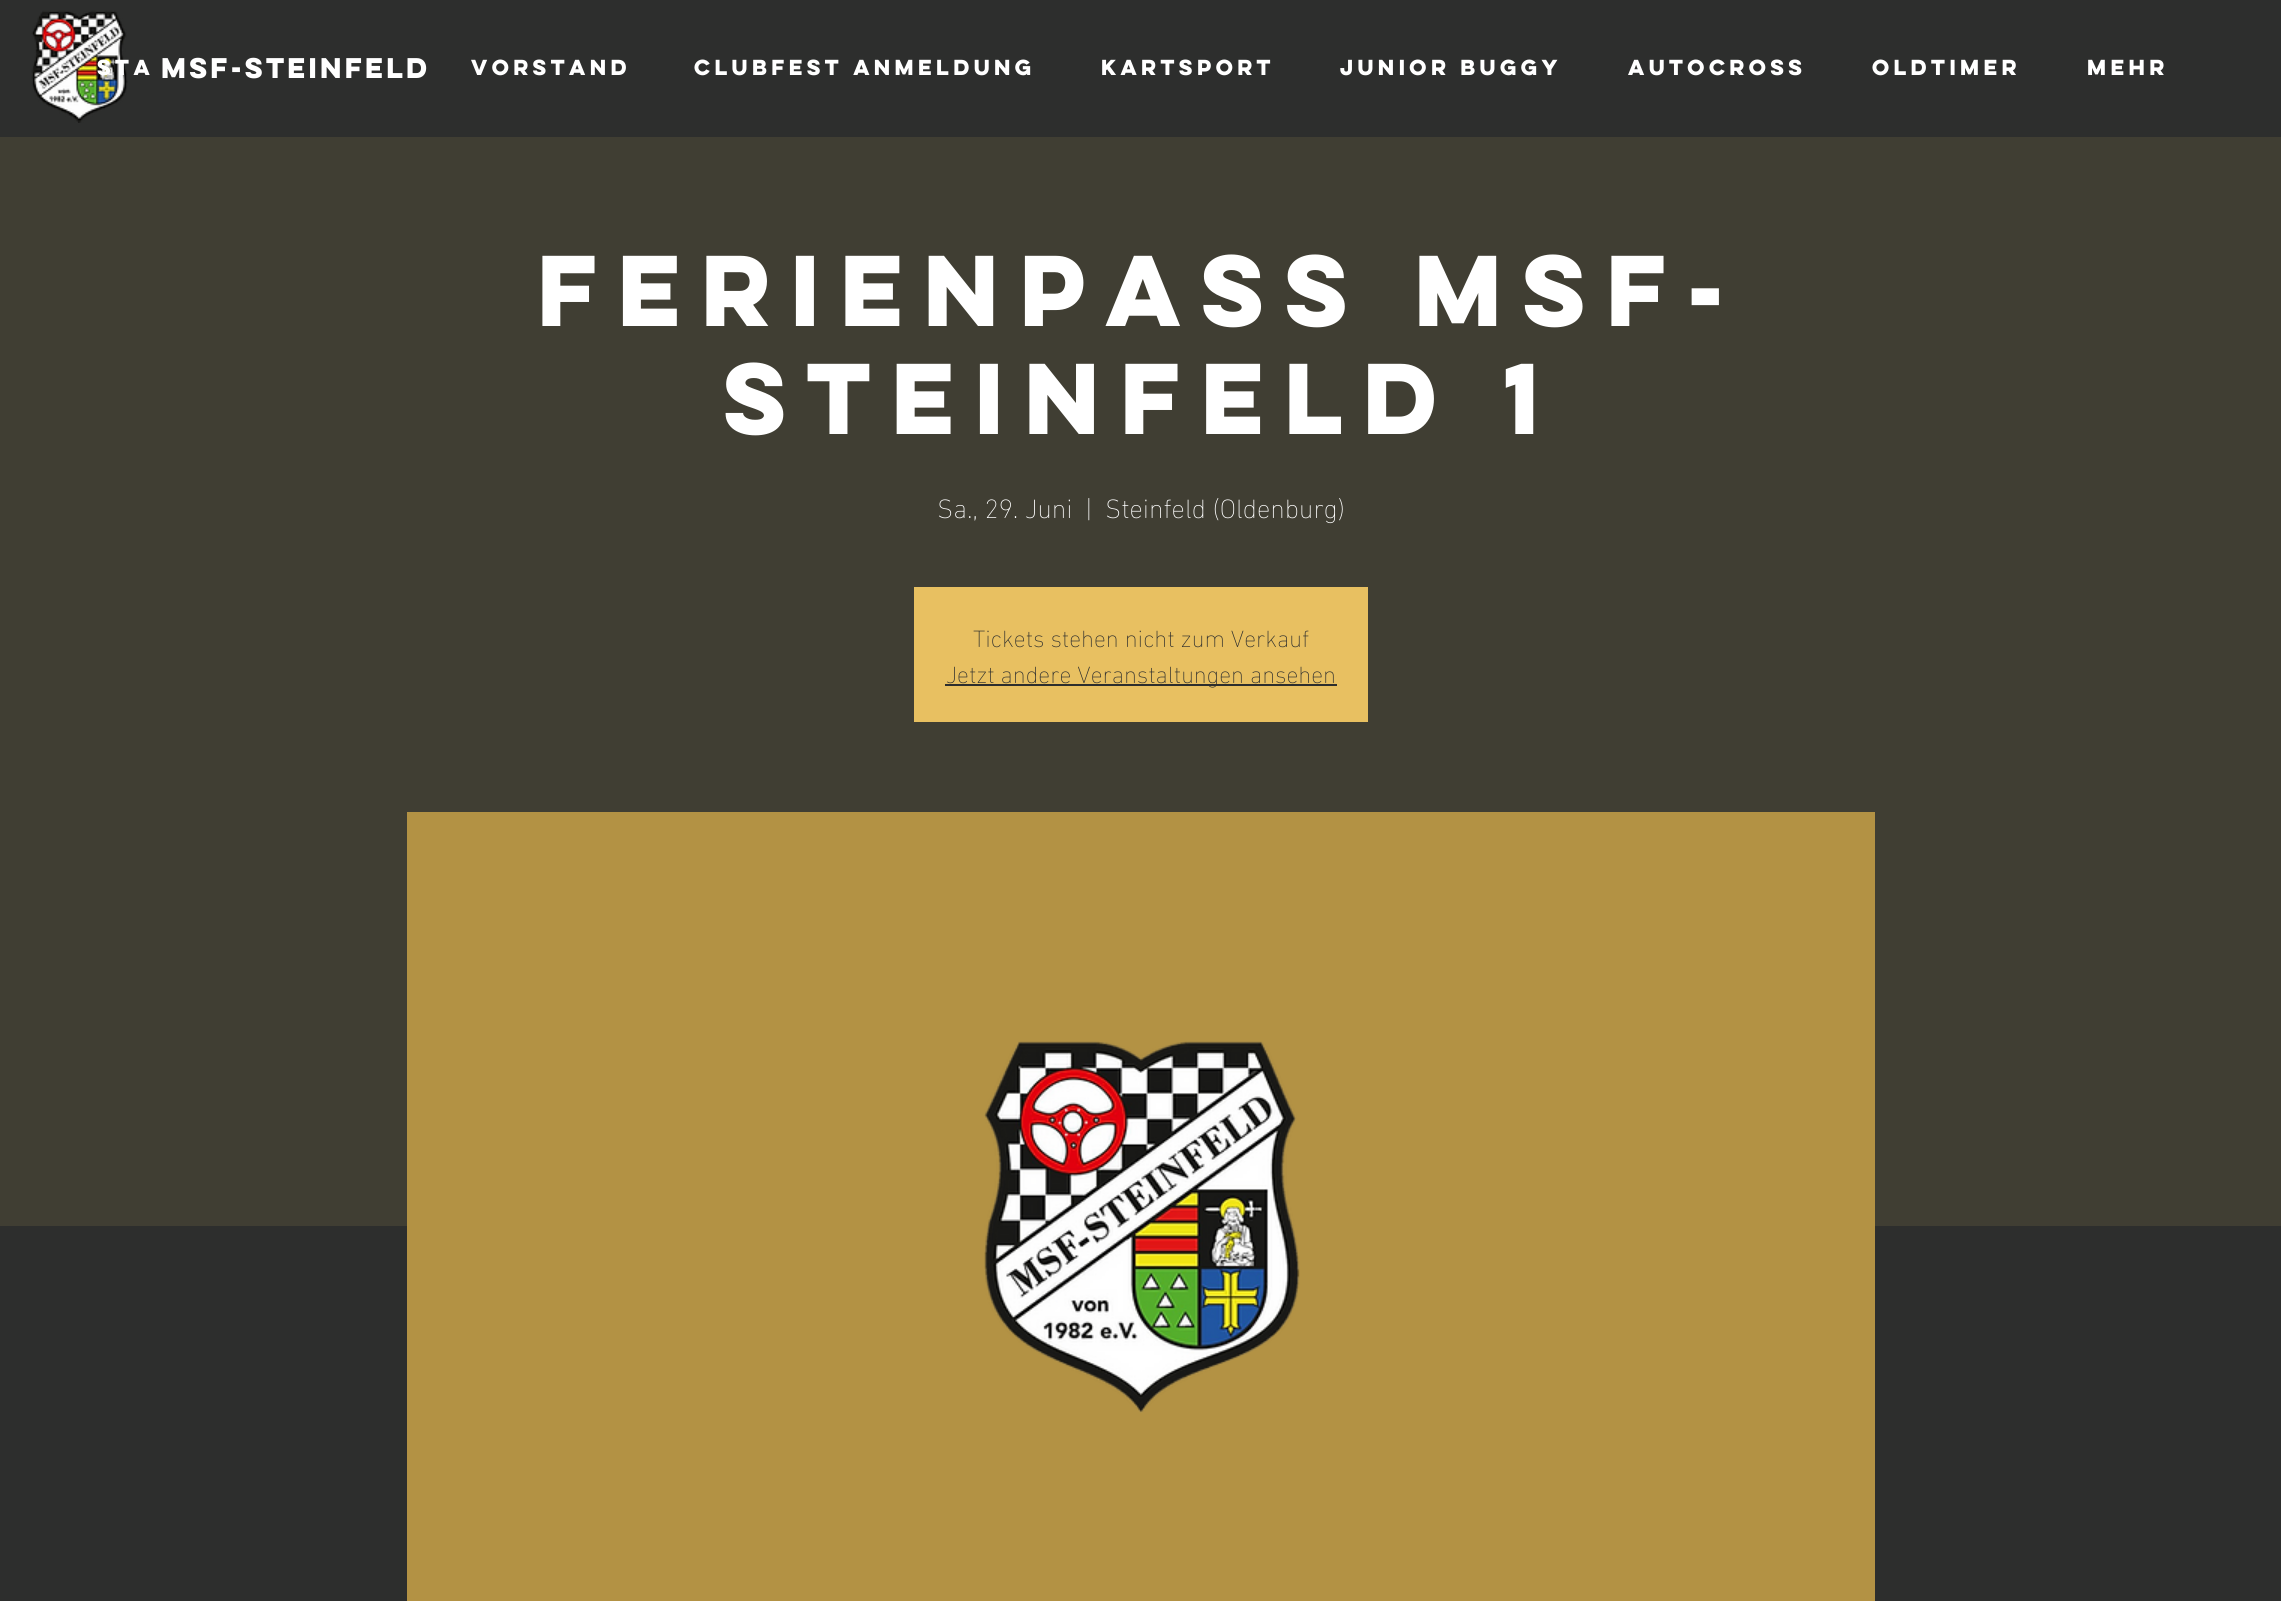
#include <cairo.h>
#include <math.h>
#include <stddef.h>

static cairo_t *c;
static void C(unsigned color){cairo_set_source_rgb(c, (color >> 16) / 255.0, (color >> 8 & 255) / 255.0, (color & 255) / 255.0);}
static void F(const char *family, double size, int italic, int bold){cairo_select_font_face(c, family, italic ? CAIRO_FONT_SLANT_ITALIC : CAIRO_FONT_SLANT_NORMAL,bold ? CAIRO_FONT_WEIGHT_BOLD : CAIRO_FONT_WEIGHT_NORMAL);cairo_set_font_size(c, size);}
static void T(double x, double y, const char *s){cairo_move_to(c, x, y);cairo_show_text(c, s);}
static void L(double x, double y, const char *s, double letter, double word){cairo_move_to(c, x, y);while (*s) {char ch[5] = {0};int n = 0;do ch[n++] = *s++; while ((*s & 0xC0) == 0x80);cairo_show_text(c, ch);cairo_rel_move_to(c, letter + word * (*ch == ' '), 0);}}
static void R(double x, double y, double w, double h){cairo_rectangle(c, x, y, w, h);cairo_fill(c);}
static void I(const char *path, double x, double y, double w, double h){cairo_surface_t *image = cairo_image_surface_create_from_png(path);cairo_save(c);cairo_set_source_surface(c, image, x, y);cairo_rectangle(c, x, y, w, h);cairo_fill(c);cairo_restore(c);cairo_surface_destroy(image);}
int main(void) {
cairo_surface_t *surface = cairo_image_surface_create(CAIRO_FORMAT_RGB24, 2281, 1601);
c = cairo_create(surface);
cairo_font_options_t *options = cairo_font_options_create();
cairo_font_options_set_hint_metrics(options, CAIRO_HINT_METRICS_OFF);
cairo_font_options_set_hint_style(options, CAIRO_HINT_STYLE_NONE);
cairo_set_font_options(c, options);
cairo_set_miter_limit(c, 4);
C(0x2d2e2d);
cairo_paint(c);
I("1.png",31,10,97,113);
F("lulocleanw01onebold",25.5,0,1);
C(0xffffff);
L(161,78,"MSF-Steinfeld",-2.5,0);
F("lulocleanw01onebold",19.5,0,1);
T(97,75,"Sta");
T(471,75,"Vorstand");
T(694,75,"Clubfest Anmeldung");
T(1101,75,"Kartsport");
T(1340,75,"Junior Buggy");
T(1628,75,"Autocross");
T(1872,75,"Oldtimer");
T(2087,75,"Mehr");
C(0x403e33);
R(0,137,2281,1089);
F("lulocleanw01onebold",90,0,1);
C(0xffffff);
T(537,326,"Ferienpass MSF-");
T(723,434,"Steinfeld 1");
F("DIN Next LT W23 ExtraLight",27,0,0);
T(937,518,"Sa., 29. Juni");
T(1086,518,"|");
T(1105,518,"Steinfeld (Oldenburg)");
C(0xe8c061);
R(914,587,454,135);
F("DIN Next LT W23 ExtraLight",24,0,0);
C(0x2d2e2d);
T(973,647,"Tickets stehen nicht zum Verkauf");
R(945,684,392,2);
T(946,683,"Jetzt andere Veranstaltungen ansehen");
C(0xb39244);
R(407,812,1468,789);
I("2.png",984,1041,316,372);
cairo_surface_write_to_png(surface, "o.png");
cairo_font_options_destroy(options);
cairo_destroy(c);
cairo_surface_destroy(surface);
return 0;
}
